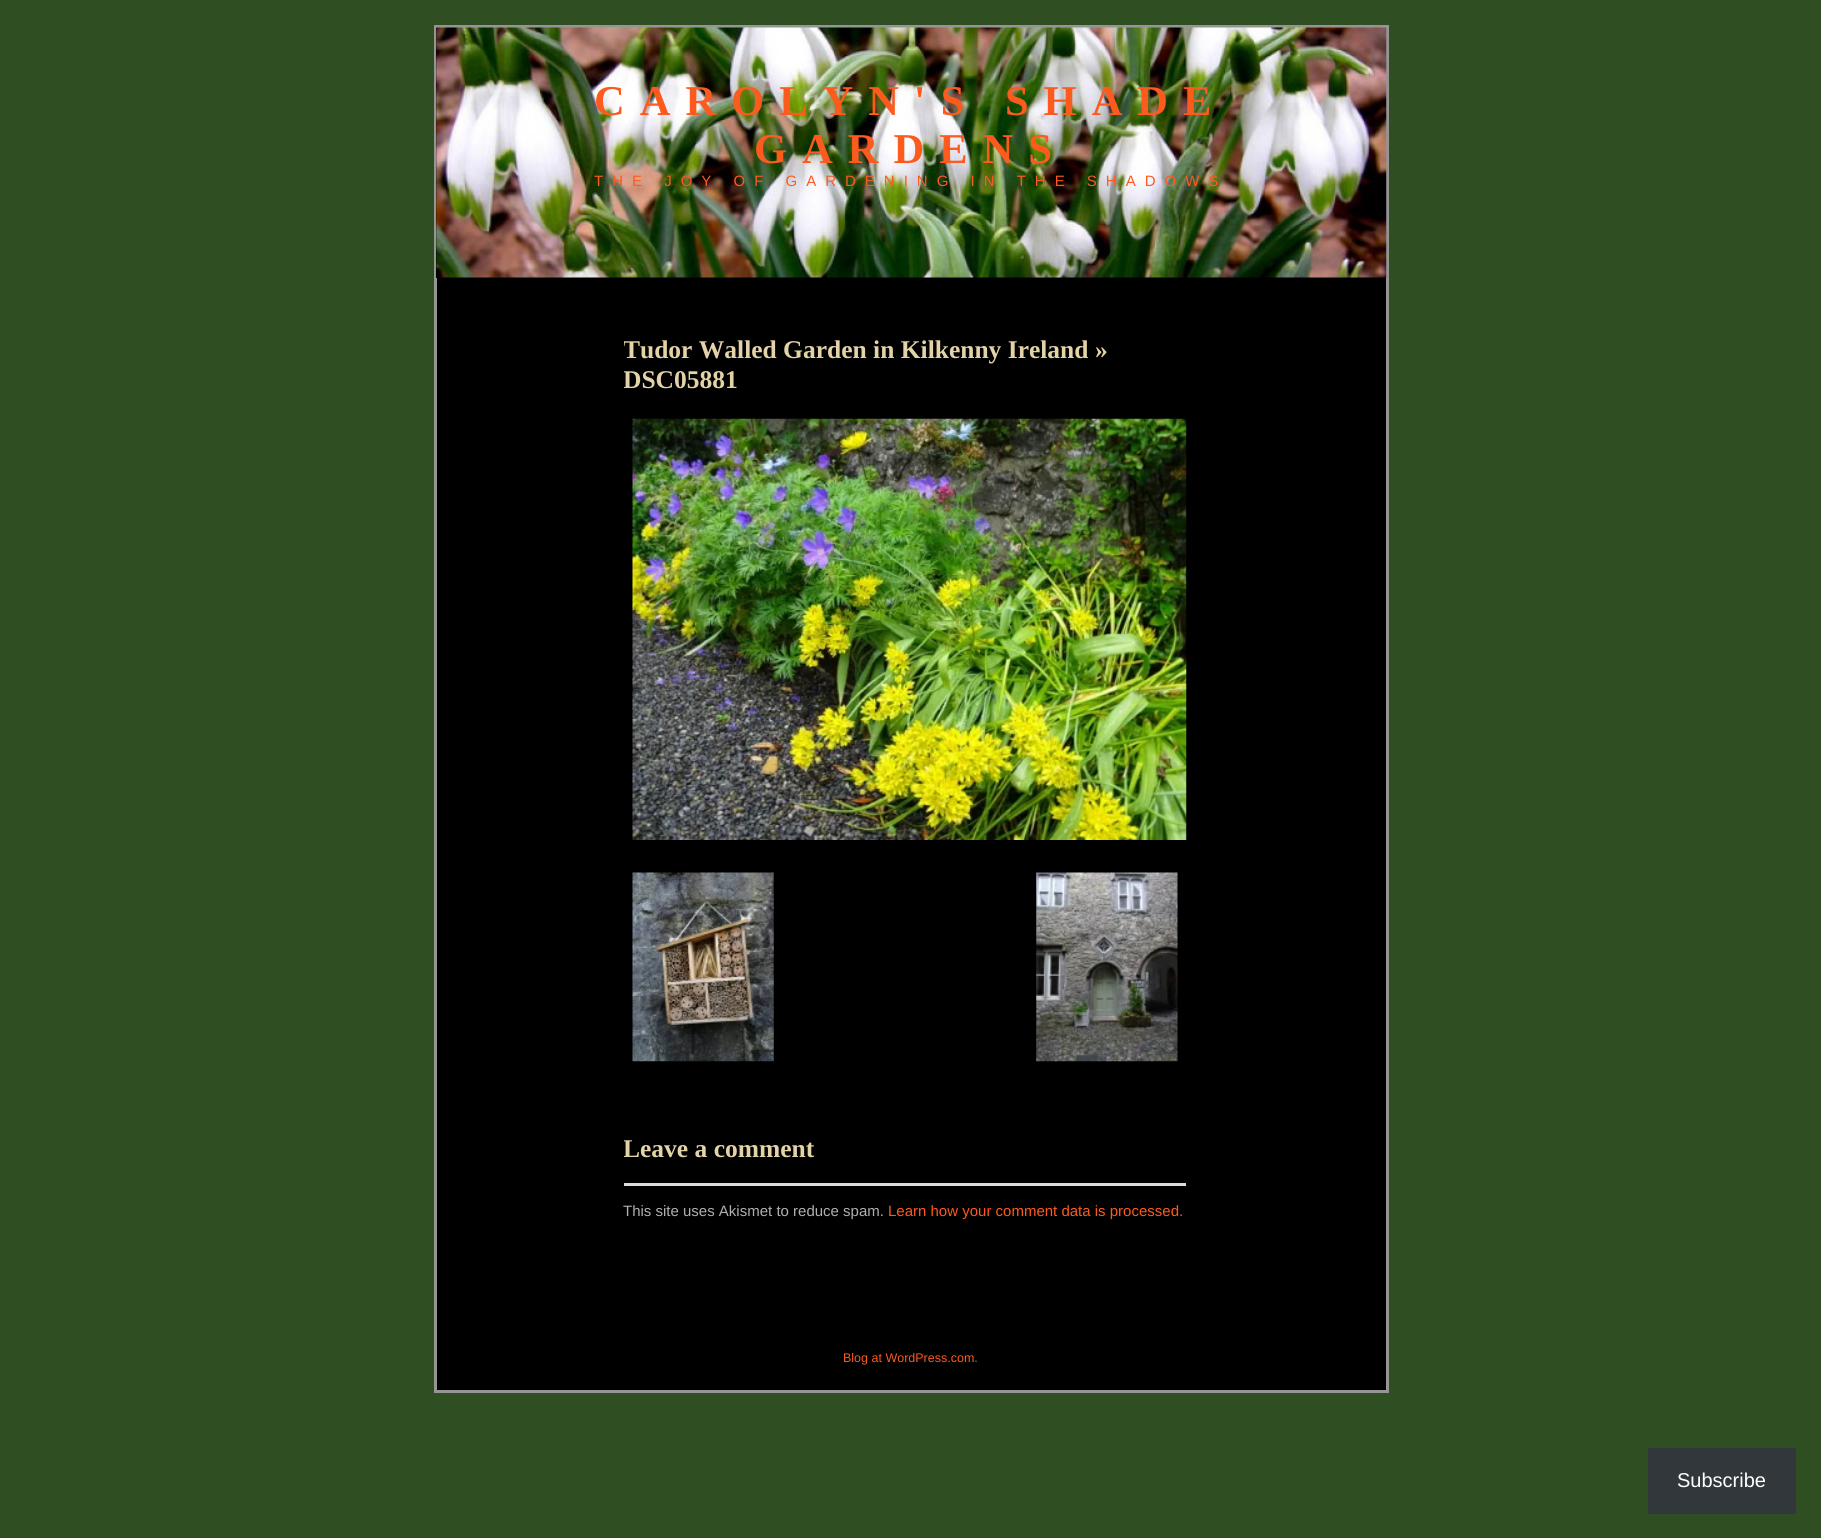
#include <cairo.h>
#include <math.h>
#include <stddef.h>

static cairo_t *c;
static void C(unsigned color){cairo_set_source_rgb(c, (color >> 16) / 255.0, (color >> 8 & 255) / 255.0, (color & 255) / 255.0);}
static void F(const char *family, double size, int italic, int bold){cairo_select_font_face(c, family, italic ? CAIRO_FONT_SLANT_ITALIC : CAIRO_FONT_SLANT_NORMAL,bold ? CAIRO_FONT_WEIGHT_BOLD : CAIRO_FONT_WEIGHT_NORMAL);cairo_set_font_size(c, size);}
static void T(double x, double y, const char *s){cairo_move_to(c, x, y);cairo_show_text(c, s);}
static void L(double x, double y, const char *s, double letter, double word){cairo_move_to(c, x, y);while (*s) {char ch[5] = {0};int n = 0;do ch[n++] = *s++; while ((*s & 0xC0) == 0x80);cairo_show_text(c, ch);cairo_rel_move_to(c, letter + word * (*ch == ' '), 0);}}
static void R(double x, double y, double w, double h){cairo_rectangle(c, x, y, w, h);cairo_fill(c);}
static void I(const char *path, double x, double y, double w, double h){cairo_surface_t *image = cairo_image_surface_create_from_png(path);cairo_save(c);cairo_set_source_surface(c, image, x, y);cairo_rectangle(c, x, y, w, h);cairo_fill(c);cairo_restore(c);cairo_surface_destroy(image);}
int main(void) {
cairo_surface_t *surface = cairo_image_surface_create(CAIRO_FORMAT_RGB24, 1821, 1538);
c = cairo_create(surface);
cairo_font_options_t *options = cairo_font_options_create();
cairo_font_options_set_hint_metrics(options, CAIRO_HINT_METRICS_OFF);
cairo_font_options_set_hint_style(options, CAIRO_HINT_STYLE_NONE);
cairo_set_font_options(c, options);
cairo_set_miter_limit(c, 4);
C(0x2f4f22);
cairo_paint(c);
C(0x000000);
R(437,278,949,1112);
cairo_rectangle(c,435.5,26.5,952,1365);
C(0x959596);
cairo_set_line_width(c,3);
cairo_stroke(c);
C(0x000000);
R(436,28,950,250);
I("1.png",436,27,951,251);
F("Liberation Serif",42.5,0,1);
C(0xfd5a1e);
L(594,115,"CAROLYN'S SHADE",15,0);
L(754,163,"GARDENS",15,0);
F("Liberation Sans",15,0,0);
L(594,186,"THE JOY OF GARDENING IN THE SHADOWS",9,0);
cairo_save(c);
cairo_rectangle(c,624,284,562,980);
cairo_clip(c);
F("Liberation Serif",25.5,0,1);
C(0xe4d3a6);
T(623,358,"Tudor Walled Garden in Kilkenny Ireland");
cairo_restore(c);
F("Liberation Serif",25.5,0,1);
C(0xe4d3a6);
T(1095,358,"»");
cairo_save(c);
cairo_rectangle(c,624,284,562,980);
cairo_clip(c);
T(623,388,"DSC05881");
cairo_restore(c);
I("2.png",632,418,555,422);
I("3.png",632,872,142,190);
I("4.png",1036,872,142,190);
cairo_save(c);
cairo_rectangle(c,624,284,562,980);
cairo_clip(c);
T(623,1157,"Leave a comment");
cairo_restore(c);
C(0xdcdcde);
R(624,1183,562,3);
F("Liberation Sans",15,0,0);
C(0xb0b0b0);
T(623,1216,"This site uses Akismet to reduce spam.");
C(0xfd5a1e);
T(888,1216,"Learn how your comment data is processed.");
F("Liberation Sans",12.5,0,0);
T(843,1362,"Blog at WordPress.com.");
C(0x32373c);
R(1648,1448,148,66);
F("Liberation Sans",20,0,0);
C(0xffffff);
T(1677,1487,"Subscribe");
cairo_surface_write_to_png(surface, "o.png");
cairo_font_options_destroy(options);
cairo_destroy(c);
cairo_surface_destroy(surface);
return 0;
}
